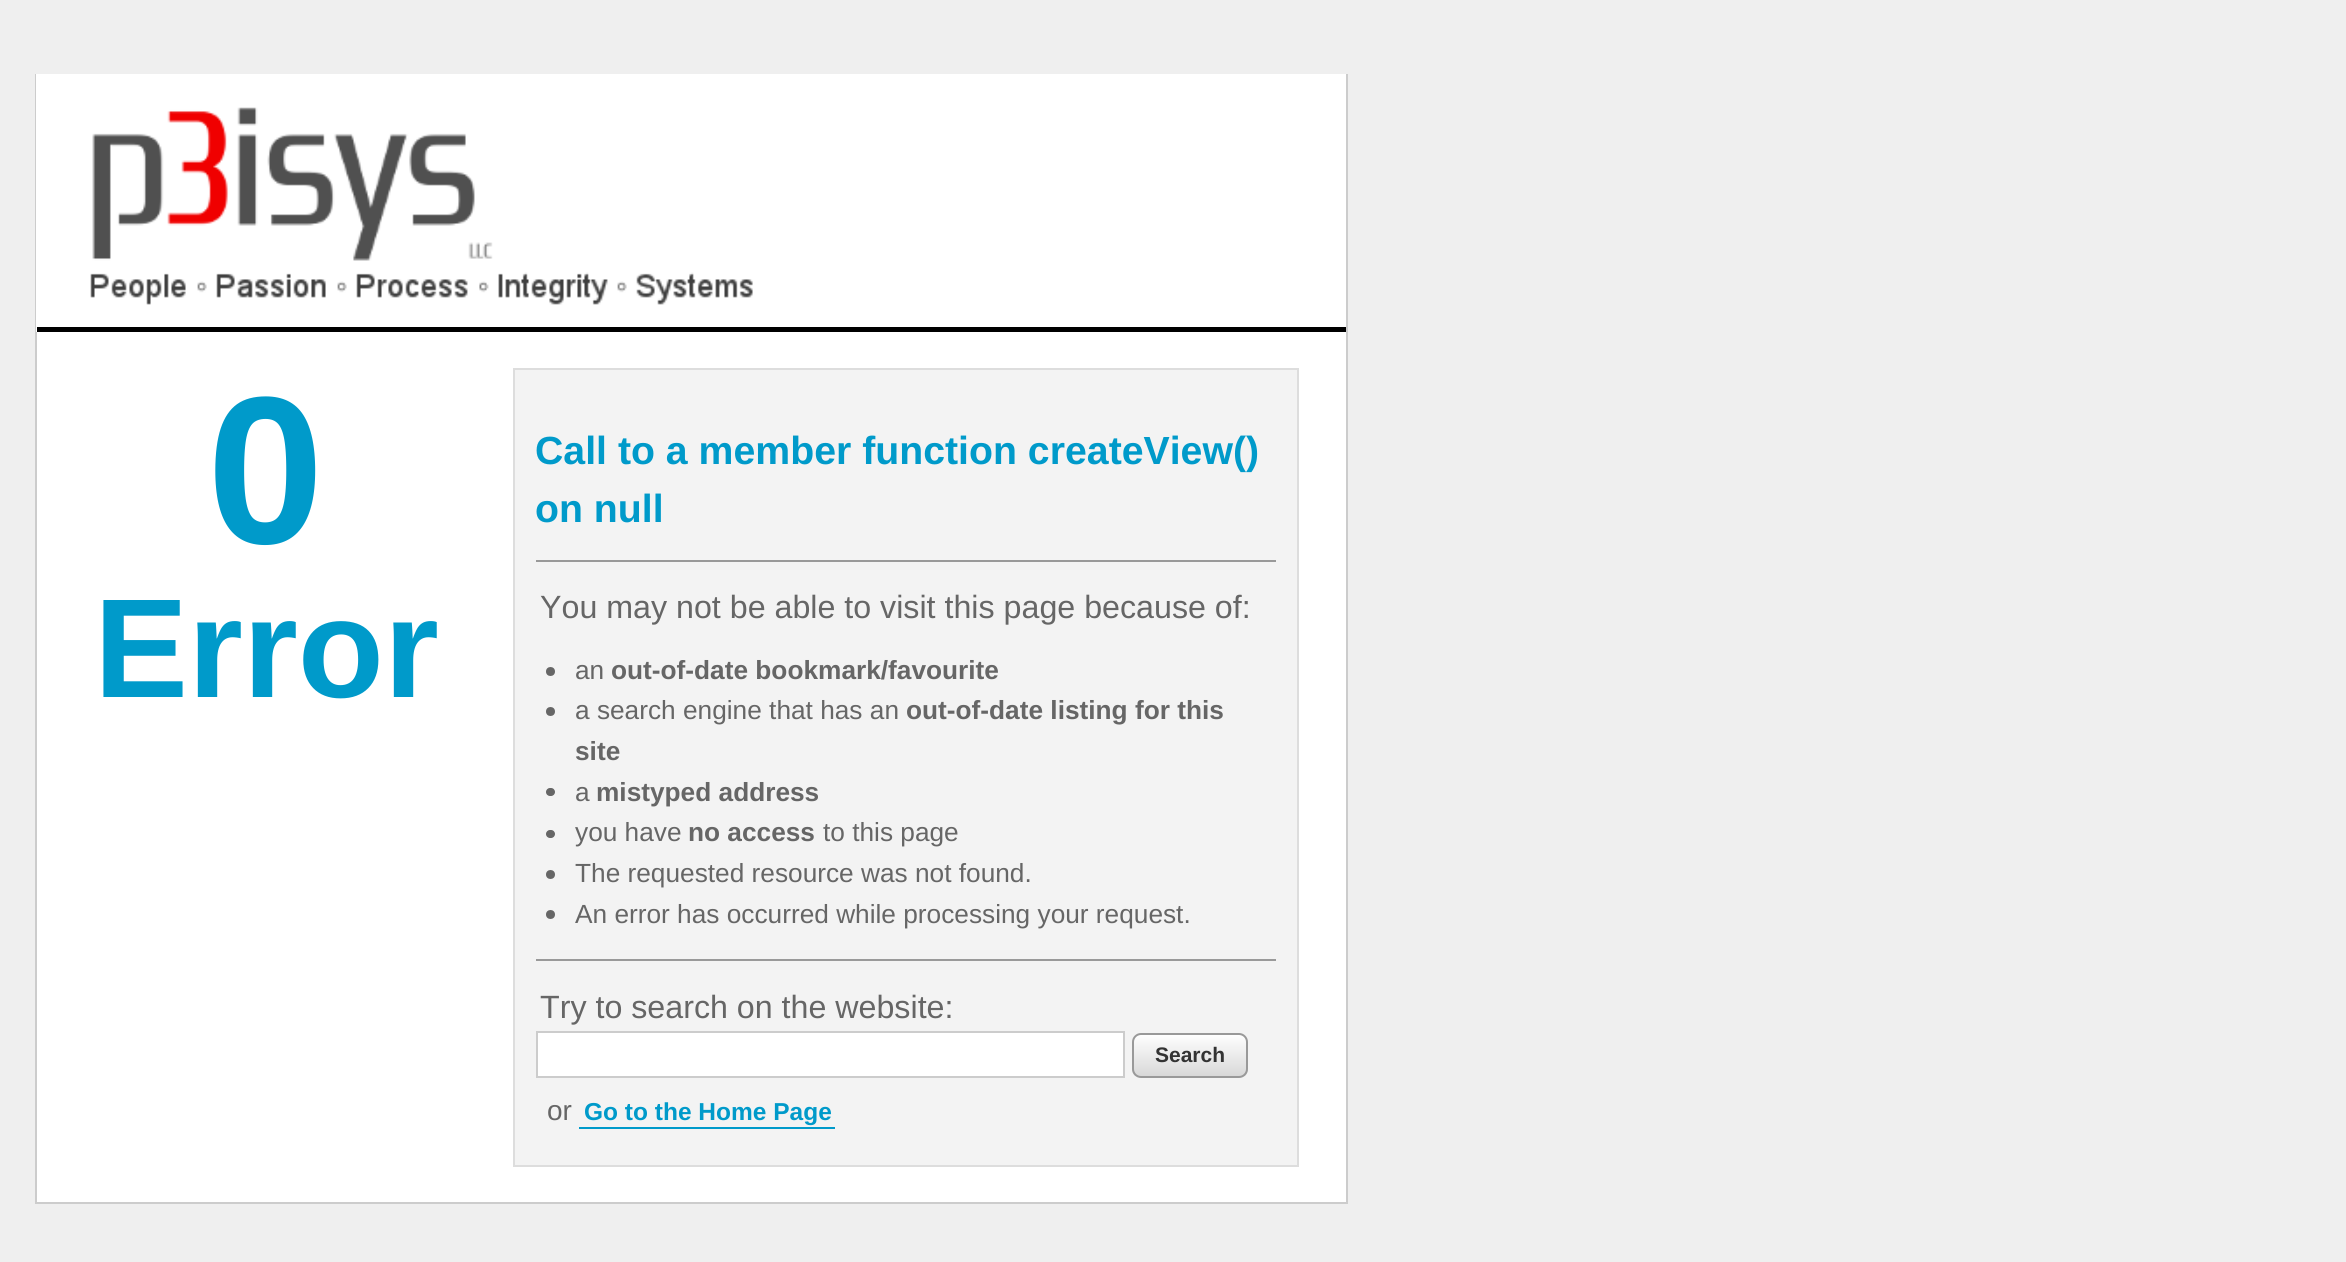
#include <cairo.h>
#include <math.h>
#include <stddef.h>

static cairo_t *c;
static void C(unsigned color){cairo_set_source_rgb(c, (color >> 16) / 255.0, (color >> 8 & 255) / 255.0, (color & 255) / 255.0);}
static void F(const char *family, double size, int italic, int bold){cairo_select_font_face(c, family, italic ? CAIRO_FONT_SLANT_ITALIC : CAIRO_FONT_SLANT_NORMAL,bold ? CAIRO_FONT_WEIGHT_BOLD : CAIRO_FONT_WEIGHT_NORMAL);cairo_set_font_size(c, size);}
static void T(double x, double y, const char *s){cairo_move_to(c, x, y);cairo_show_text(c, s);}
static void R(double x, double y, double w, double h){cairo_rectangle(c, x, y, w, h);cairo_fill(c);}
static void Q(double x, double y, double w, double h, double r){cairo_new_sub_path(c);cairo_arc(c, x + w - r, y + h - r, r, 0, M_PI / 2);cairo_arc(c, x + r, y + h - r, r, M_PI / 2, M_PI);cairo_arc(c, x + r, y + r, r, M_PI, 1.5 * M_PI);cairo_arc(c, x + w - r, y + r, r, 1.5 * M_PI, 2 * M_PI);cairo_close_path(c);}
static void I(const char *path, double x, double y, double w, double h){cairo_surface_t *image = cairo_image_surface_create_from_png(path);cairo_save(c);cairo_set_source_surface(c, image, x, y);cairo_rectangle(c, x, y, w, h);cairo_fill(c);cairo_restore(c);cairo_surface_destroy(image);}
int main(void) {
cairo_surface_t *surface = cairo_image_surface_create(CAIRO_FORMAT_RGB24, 2346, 1262);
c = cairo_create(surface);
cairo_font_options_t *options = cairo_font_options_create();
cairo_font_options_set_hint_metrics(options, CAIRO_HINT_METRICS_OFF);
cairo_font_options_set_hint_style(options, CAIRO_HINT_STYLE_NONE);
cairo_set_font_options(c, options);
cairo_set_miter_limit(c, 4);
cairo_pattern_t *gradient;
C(0xefefef);
cairo_paint(c);
C(0xffffff);
R(37,332,1309,870);
cairo_rectangle(c,36,75,1311,1128);
C(0xcccccc);
cairo_stroke(c);
C(0xffffff);
R(36,74,1310,258);
C(0x000000);
R(37,327,1309,5);
I("1.png",90,107,663,198);
F("Liberation Sans",210,0,1);
C(0x009aca);
T(207,543,"0");
F("Liberation Sans",141,0,1);
T(94,697,"Error");
C(0xf3f3f3);
cairo_rectangle(c,514,369,784,797);
cairo_fill_preserve(c);
C(0xdddddd);
cairo_stroke(c);
F("Liberation Sans",39.25,0,1);
C(0x009aca);
T(535,464,"Call to a member function createView()");
T(535,522,"on null");
C(0x999999);
R(536,560,740,2);
F("Liberation Sans",32.2,0,0);
C(0x666666);
T(540,618,"You may not be able to visit this page because of:");
cairo_new_path(c);
cairo_arc(c,550.5,671.5,4.5,0,2 * M_PI);
cairo_fill(c);
F("Liberation Sans",26.25,0,0);
T(575,679,"an");
F("Liberation Sans",26.25,0,1);
T(611,679,"out-of-date bookmark/favourite");
cairo_new_path(c);
cairo_arc(c,550.5,711.5,4.5,0,2 * M_PI);
cairo_fill(c);
F("Liberation Sans",26.25,0,0);
T(575,719,"a search engine that has an");
F("Liberation Sans",26.25,0,1);
T(906,719,"out-of-date listing for this");
T(575,760,"site");
Q(546,788,9,8,4);
cairo_fill(c);
F("Liberation Sans",26.25,0,0);
T(575,801,"a");
F("Liberation Sans",26.25,0,1);
T(596,801,"mistyped address");
Q(546,830,9,8,4);
cairo_fill(c);
F("Liberation Sans",26.25,0,0);
T(575,841,"you have");
F("Liberation Sans",26.25,0,1);
T(688,841,"no access");
F("Liberation Sans",26.25,0,0);
T(823,841,"to this page");
cairo_new_path(c);
cairo_arc(c,550.5,874.5,4.5,0,2 * M_PI);
cairo_fill(c);
T(575,882,"The requested resource was not found.");
cairo_new_path(c);
cairo_arc(c,550.5,914.5,4.5,0,2 * M_PI);
cairo_fill(c);
T(575,923,"An error has occurred while processing your request.");
C(0x999999);
R(536,959,740,2);
F("Liberation Sans",32.2,0,0);
C(0x666666);
T(540,1018,"Try to search on the website:");
C(0xffffff);
cairo_rectangle(c,537,1032,587,45);
cairo_fill_preserve(c);
C(0xcccccc);
cairo_stroke(c);
cairo_save(c);
Q(1132,1033,116,45,9);
cairo_clip(c);
gradient = cairo_pattern_create_linear(1190,1034,1190,1076);
cairo_pattern_add_color_stop_rgba(gradient,0,1,1,1,1);
cairo_pattern_add_color_stop_rgba(gradient,1,0.847,0.847,0.847,1);
cairo_set_source(c,gradient);
cairo_pattern_destroy(gradient);
R(1132,1034,116,42);
cairo_restore(c);
Q(1133,1034,114,43,8);
C(0x999999);
cairo_stroke(c);
F("Liberation Sans",21,0,1);
C(0x333333);
T(1155,1062,"Search");
F("Liberation Sans",28,0,0);
C(0x666666);
T(547,1120,"or");
F("Liberation Sans",24.5,0,1);
C(0x009aca);
T(584,1120,"Go to the Home Page");
R(579,1127,256,2);
cairo_surface_write_to_png(surface, "o.png");
cairo_font_options_destroy(options);
cairo_destroy(c);
cairo_surface_destroy(surface);
return 0;
}
